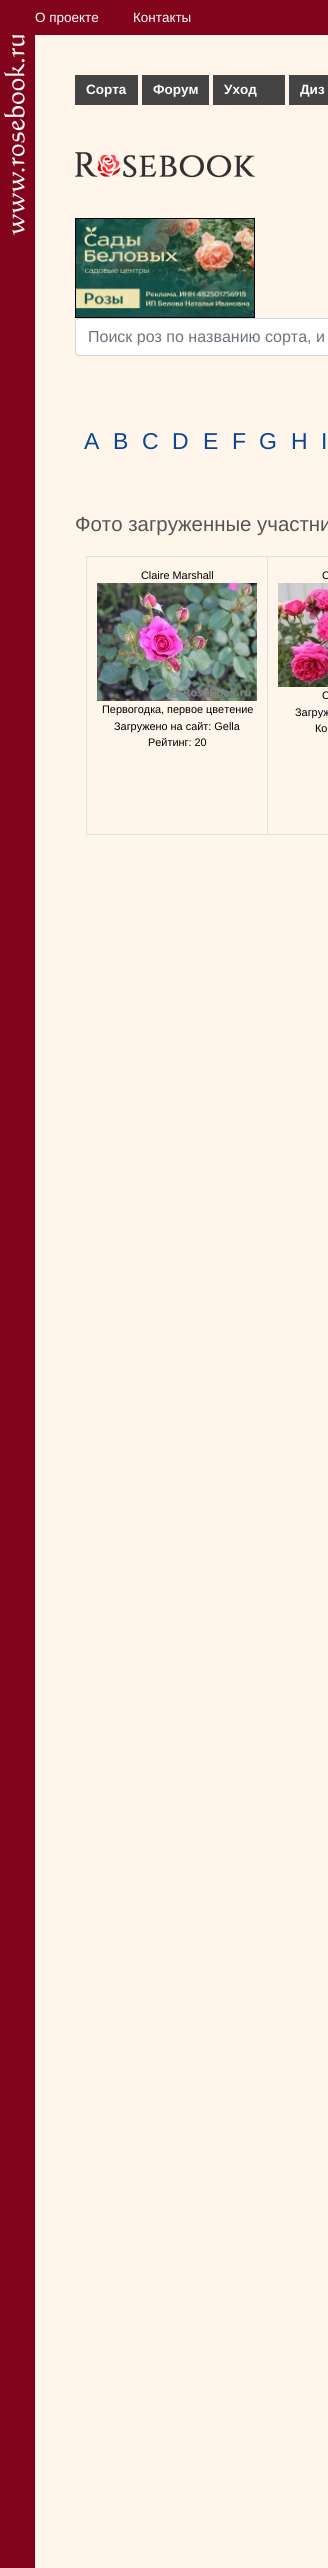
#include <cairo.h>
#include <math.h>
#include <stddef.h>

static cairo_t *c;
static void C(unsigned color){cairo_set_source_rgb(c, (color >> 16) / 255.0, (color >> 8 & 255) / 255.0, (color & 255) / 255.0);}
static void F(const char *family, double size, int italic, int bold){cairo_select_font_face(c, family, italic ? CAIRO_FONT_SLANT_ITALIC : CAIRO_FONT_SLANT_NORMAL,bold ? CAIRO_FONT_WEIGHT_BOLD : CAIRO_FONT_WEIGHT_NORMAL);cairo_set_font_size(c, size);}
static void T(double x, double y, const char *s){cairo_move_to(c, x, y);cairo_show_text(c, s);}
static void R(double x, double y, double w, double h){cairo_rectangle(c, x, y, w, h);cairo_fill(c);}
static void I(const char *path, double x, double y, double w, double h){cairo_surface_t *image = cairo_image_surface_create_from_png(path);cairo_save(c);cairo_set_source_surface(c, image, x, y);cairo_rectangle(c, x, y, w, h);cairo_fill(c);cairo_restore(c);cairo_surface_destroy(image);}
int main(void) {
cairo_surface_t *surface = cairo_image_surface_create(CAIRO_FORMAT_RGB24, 328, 2568);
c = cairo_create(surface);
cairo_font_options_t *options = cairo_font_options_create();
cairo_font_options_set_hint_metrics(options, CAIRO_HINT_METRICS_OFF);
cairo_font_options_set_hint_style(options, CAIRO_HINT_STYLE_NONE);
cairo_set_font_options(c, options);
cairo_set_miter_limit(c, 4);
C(0xfff5eb);
cairo_paint(c);
C(0x81031c);
R(0,0,35,2568);
I("1.png",4,35,21,200);
R(35,0,293,35);
F("Liberation Sans",13.5,0,0);
C(0xffffff);
T(35,22,"О проекте");
T(133,22,"Контакты");
C(0x444444);
R(75,75,63,30);
F("Liberation Sans",13.5,0,1);
C(0xffffff);
T(86,94,"Сорта");
C(0x444444);
R(142,75,67,30);
C(0xffffff);
T(153,94,"Форум");
C(0x444444);
R(213,75,72,30);
C(0xffffff);
T(224,94,"Уход");
C(0x444444);
R(289,75,39,30);
C(0xffffff);
T(300,94,"Диз");
I("2.png",75,152,180,26);
cairo_rectangle(c,75.5,218.5,179,99);
C(0x000000);
cairo_set_line_width(c,1);
cairo_stroke(c);
I("3.png",76,219,178,98);
C(0xffffff);
cairo_new_path(c);
cairo_move_to(c,79,319);
cairo_line_to(c,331,319);
cairo_line_to(c,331,355);
cairo_line_to(c,79,355);
cairo_curve_to(c,77.5,355,76,353.5,76,352);
cairo_line_to(c,76,322);
cairo_curve_to(c,76,320.5,77.5,319,79,319);
cairo_close_path(c);
cairo_fill(c);
cairo_new_path(c);
cairo_move_to(c,79,318.5);
cairo_line_to(c,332.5,318.5);
cairo_line_to(c,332.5,355.5);
cairo_line_to(c,79,355.5);
cairo_curve_to(c,77,355.5,75.5,354,75.5,352);
cairo_line_to(c,75.5,322);
cairo_curve_to(c,75.5,320,77,318.5,79,318.5);
cairo_close_path(c);
C(0xced4da);
cairo_stroke(c);
F("Liberation Sans",16,0,0);
C(0x6c757d);
T(88,342,"Поиск роз по названию сорта, и");
F("Liberation Sans",23,0,0);
C(0x094794);
T(84,449,"A");
T(113,449,"B");
T(142,449,"C");
T(172,449,"D");
T(203,449,"E");
T(232,449,"F");
T(259,449,"G");
T(291,449,"H");
T(321,449,"I");
F("Liberation Sans",20.4,0,0);
C(0x555555);
T(75,531,"Фото загруженные участни");
C(0xdee2e6);
R(267,556,61,1);
R(267,834,61,1);
R(267,556,1,279);
R(86,556,182,1);
R(86,834,182,1);
R(86,556,1,279);
F("Liberation Sans",10.9,0,0);
C(0x000000);
T(141,579,"Claire Marshall");
I("4.png",97,583,160,118);
T(102,713,"Первогодка, первое цветение");
T(114,730,"Загружено на сайт: Gella");
T(148,746,"Рейтинг: 20");
T(322,579,"C");
I("5.png",278,583,50,104);
T(322,699,"C");
T(295,716,"Загруж");
T(315,732,"Ко");
cairo_surface_write_to_png(surface, "o.png");
cairo_font_options_destroy(options);
cairo_destroy(c);
cairo_surface_destroy(surface);
return 0;
}
